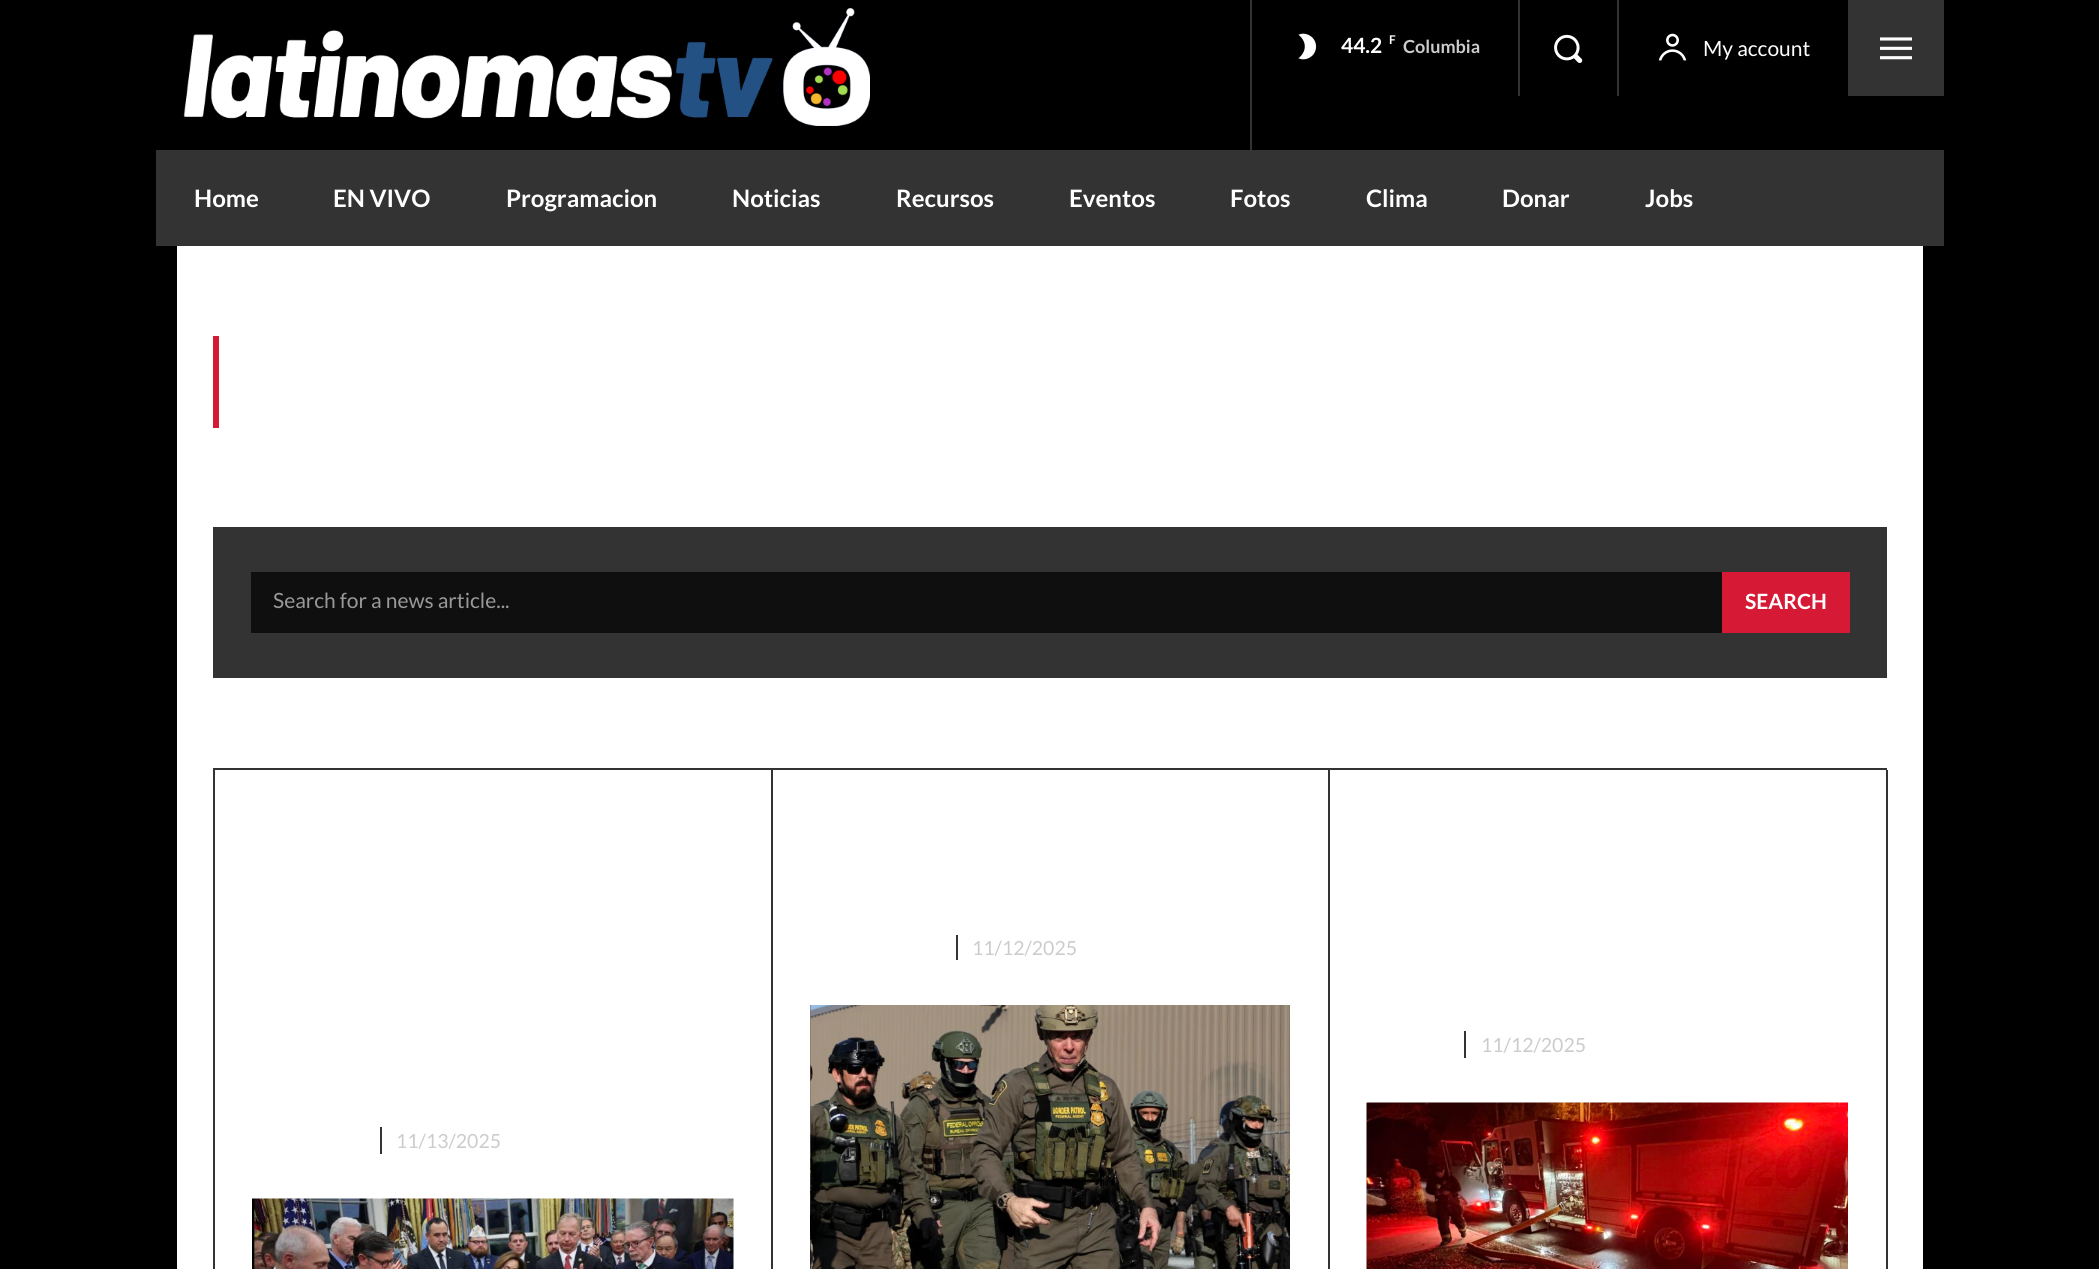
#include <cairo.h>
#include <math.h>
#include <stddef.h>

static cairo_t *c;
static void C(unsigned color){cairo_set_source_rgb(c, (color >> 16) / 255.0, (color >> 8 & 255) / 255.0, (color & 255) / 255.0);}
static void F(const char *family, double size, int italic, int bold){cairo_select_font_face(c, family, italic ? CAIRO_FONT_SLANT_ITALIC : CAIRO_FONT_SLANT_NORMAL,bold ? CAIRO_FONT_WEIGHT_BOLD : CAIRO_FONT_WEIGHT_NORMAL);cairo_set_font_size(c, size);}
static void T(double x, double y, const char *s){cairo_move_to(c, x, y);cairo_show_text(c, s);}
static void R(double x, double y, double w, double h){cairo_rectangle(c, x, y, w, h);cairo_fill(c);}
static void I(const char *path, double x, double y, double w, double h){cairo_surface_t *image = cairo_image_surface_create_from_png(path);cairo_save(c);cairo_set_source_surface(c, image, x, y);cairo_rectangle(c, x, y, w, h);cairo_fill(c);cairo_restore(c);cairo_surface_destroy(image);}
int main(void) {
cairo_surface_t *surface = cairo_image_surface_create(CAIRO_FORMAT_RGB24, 2099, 1269);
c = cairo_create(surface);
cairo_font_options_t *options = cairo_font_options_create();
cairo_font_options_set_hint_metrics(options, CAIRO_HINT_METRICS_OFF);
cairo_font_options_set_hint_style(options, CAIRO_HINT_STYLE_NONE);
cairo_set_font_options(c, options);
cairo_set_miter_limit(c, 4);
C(0x000000);
cairo_paint(c);
I("1.png",183,8,687,118);
C(0x333333);
R(1250,0,2,150);
R(1518,0,2,96);
I("2.png",1298,33,19,27);
F("Lato",21,0,1);
C(0xffffff);
T(1341,53,"44.2");
F("Lato",12,0,1);
T(1389,44,"F");
F("Lato",18,0,1);
C(0xcccccc);
T(1403,53,"Columbia");
C(0x333333);
R(1617,0,2,96);
I("3.png",1554,34,29,29);
I("4.png",1658,33,29,28);
F("Lato",21,0,0);
C(0xffffff);
T(1703,56,"My account");
C(0x333333);
R(1848,0,96,96);
I("5.png",1880,37,32,23);
R(156,150,1788,96);
F("Lato",24,0,1);
C(0xffffff);
T(194,207,"Home");
T(333,207,"EN VIVO");
T(506,207,"Programacion");
T(732,207,"Noticias");
T(896,207,"Recursos");
T(1069,207,"Eventos");
T(1230,207,"Fotos");
T(1366,207,"Clima");
T(1502,207,"Donar");
T(1645,207,"Jobs");
R(177,246,1746,1023);
C(0xd61935);
R(213,336,6,92);
C(0x333333);
R(213,527,1674,151);
C(0x0f0f0f);
R(251,572,1471,61);
F("Lato",21,0,0);
C(0x999999);
T(273,608,"Search for a news article...");
C(0xd61935);
R(1722,572,128,61);
F("Lato",21,0,1);
C(0xffffff);
T(1745,609,"SEARCH");
C(0x333333);
R(213,768,1674,2);
R(213,768,2,501);
R(1328,770,2,499);
R(956,935,2,25);
F("Lato",19.5,0,0);
C(0xcccccc);
T(972,955,"11/12/2025");
I("6.png",810,1005,480,264);
C(0x333333);
R(1886,770,2,499);
R(1464,1031,2,27);
C(0xcccccc);
T(1481,1052,"11/12/2025");
I("7.png",1366,1102,482,167);
C(0x333333);
R(771,770,2,499);
R(380,1127,2,27);
C(0xcccccc);
T(396,1148,"11/13/2025");
I("8.png",252,1198,482,71);
cairo_surface_write_to_png(surface, "o.png");
cairo_font_options_destroy(options);
cairo_destroy(c);
cairo_surface_destroy(surface);
return 0;
}
